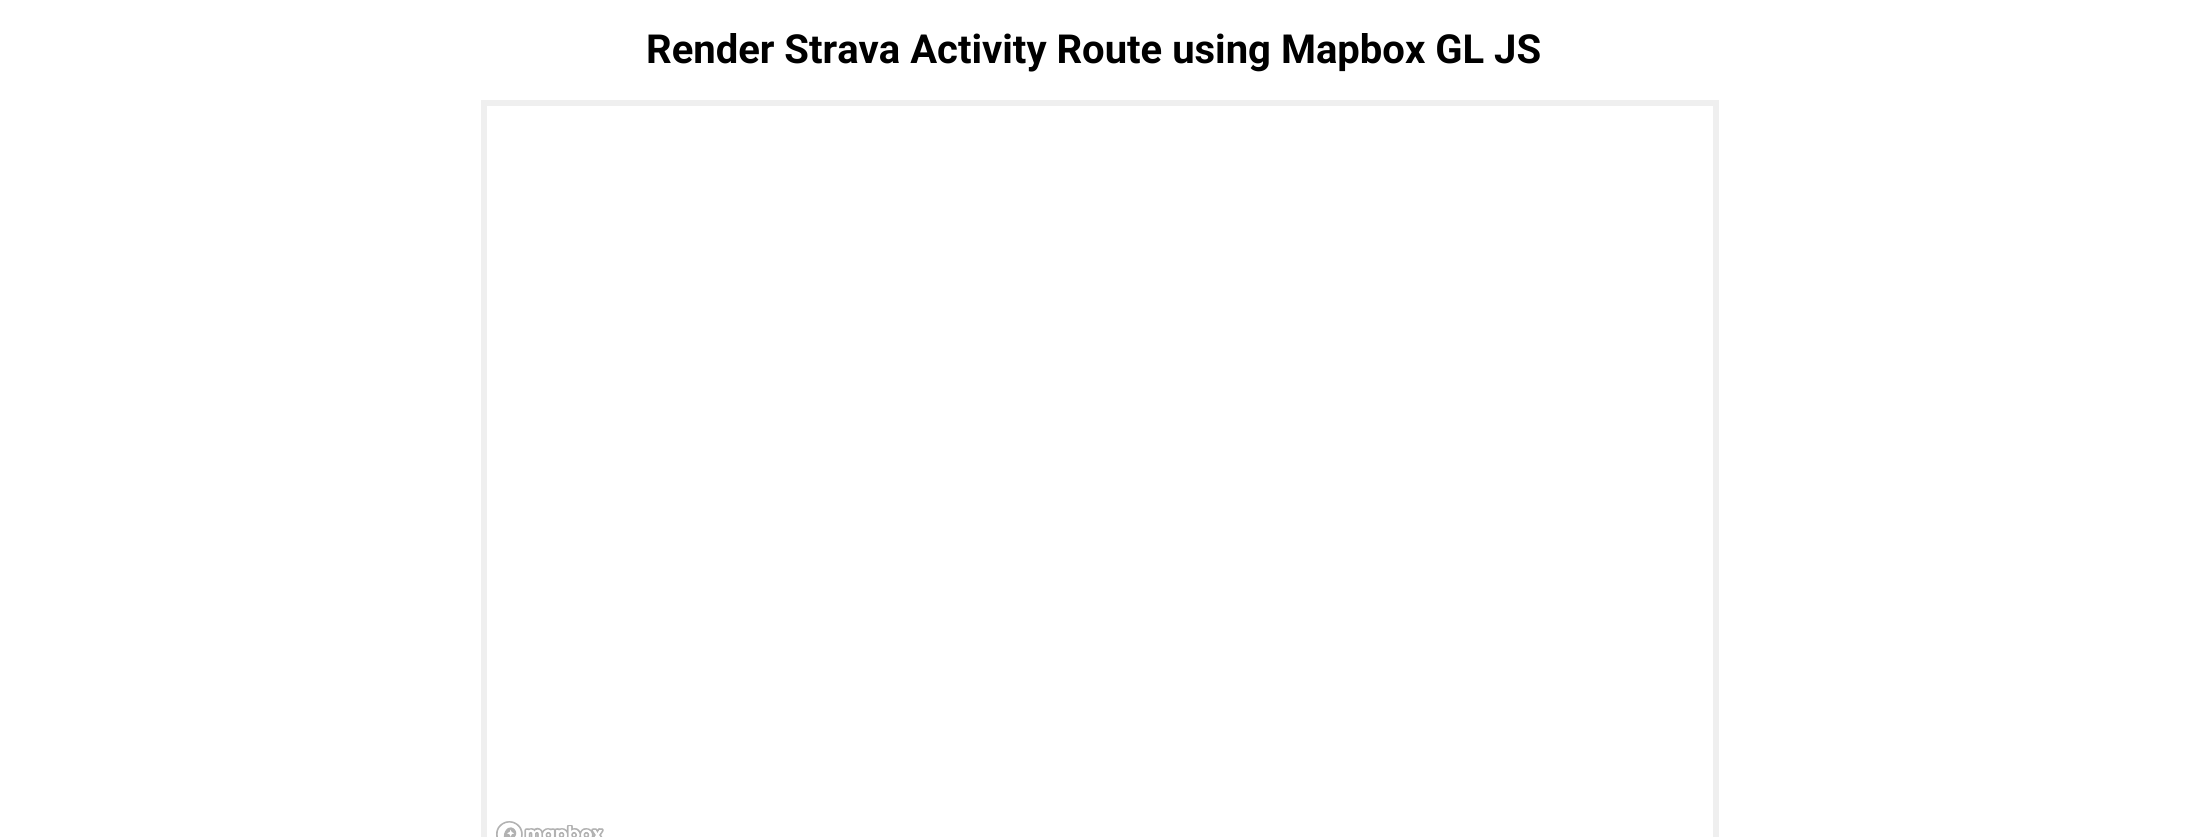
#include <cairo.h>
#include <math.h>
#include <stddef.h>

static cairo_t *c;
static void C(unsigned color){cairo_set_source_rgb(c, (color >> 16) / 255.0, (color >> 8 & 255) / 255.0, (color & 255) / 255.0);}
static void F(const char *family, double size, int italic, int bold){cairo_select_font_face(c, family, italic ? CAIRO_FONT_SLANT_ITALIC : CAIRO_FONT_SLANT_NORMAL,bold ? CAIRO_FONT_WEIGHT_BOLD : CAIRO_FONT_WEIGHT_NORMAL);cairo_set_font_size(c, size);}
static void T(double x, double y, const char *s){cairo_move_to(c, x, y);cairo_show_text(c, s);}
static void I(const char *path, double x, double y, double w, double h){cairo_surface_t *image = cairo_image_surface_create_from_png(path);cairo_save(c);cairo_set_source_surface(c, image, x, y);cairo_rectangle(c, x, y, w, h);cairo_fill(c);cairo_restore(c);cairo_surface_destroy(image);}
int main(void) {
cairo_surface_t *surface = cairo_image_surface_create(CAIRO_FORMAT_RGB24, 2186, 837);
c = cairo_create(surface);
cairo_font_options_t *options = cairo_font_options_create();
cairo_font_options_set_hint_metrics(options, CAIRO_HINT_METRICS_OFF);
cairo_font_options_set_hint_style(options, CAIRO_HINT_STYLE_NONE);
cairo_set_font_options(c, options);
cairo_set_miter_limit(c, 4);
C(0xffffff);
cairo_paint(c);
F("Roboto",40,0,1);
C(0x000000);
T(646,63,"Render Strava Activity Route using Mapbox GL JS");
cairo_rectangle(c,484,103,1232,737);
C(0xefefef);
cairo_set_line_width(c,6);
cairo_stroke(c);
I("1.png",496,821,108,16);
cairo_surface_write_to_png(surface, "o.png");
cairo_font_options_destroy(options);
cairo_destroy(c);
cairo_surface_destroy(surface);
return 0;
}
